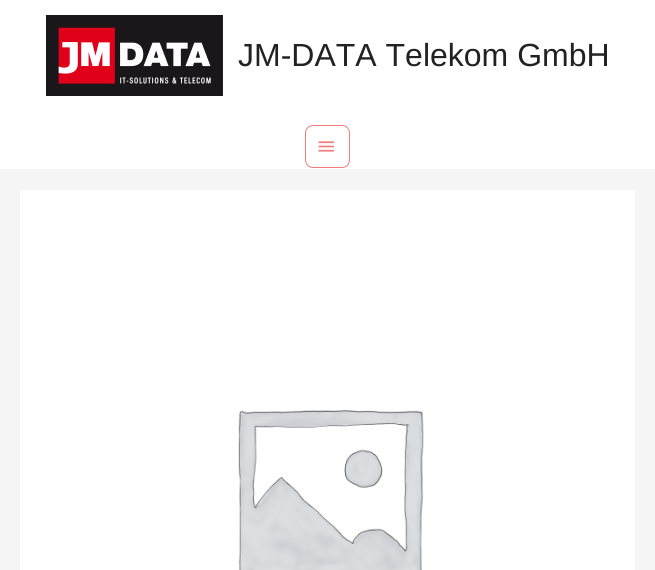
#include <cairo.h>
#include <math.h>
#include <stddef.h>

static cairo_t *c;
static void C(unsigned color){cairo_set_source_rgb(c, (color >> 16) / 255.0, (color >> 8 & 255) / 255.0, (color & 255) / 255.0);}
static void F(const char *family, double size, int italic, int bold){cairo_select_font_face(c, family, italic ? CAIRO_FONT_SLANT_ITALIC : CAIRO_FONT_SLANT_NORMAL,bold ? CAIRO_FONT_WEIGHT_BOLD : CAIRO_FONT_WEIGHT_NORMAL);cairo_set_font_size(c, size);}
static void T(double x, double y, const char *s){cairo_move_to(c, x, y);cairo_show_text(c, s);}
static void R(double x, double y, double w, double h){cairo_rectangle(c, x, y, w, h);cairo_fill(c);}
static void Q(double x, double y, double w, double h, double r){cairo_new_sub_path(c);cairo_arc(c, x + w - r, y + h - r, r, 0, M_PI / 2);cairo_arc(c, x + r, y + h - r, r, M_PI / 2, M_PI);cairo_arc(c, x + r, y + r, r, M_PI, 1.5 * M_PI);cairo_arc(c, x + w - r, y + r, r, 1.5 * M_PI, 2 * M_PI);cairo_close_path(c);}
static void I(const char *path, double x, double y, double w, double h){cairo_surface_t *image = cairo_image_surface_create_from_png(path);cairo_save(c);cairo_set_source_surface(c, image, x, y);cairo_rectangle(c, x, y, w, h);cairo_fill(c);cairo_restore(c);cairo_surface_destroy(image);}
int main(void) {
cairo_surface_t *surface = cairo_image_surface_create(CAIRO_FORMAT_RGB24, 655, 570);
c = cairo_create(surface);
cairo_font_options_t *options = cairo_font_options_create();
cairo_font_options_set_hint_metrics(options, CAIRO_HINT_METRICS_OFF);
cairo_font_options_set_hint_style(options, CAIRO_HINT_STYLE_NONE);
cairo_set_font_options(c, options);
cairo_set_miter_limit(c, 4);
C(0xf5f5f5);
cairo_paint(c);
C(0xffffff);
R(0,0,655,169);
I("1.png",46,15,177,81);
F("Liberation Sans",32,0,0);
C(0x222222);
T(238,66,"JM-DATA Telekom GmbH");
Q(305.5,125.5,44,42,7.5);
C(0xf47c7c);
cairo_set_line_width(c,1);
cairo_stroke(c);
I("2.png",318,141,16,11);
C(0xffffff);
R(20,190,615,380);
I("3.png",238,410,186,160);
cairo_surface_write_to_png(surface, "o.png");
cairo_font_options_destroy(options);
cairo_destroy(c);
cairo_surface_destroy(surface);
return 0;
}
